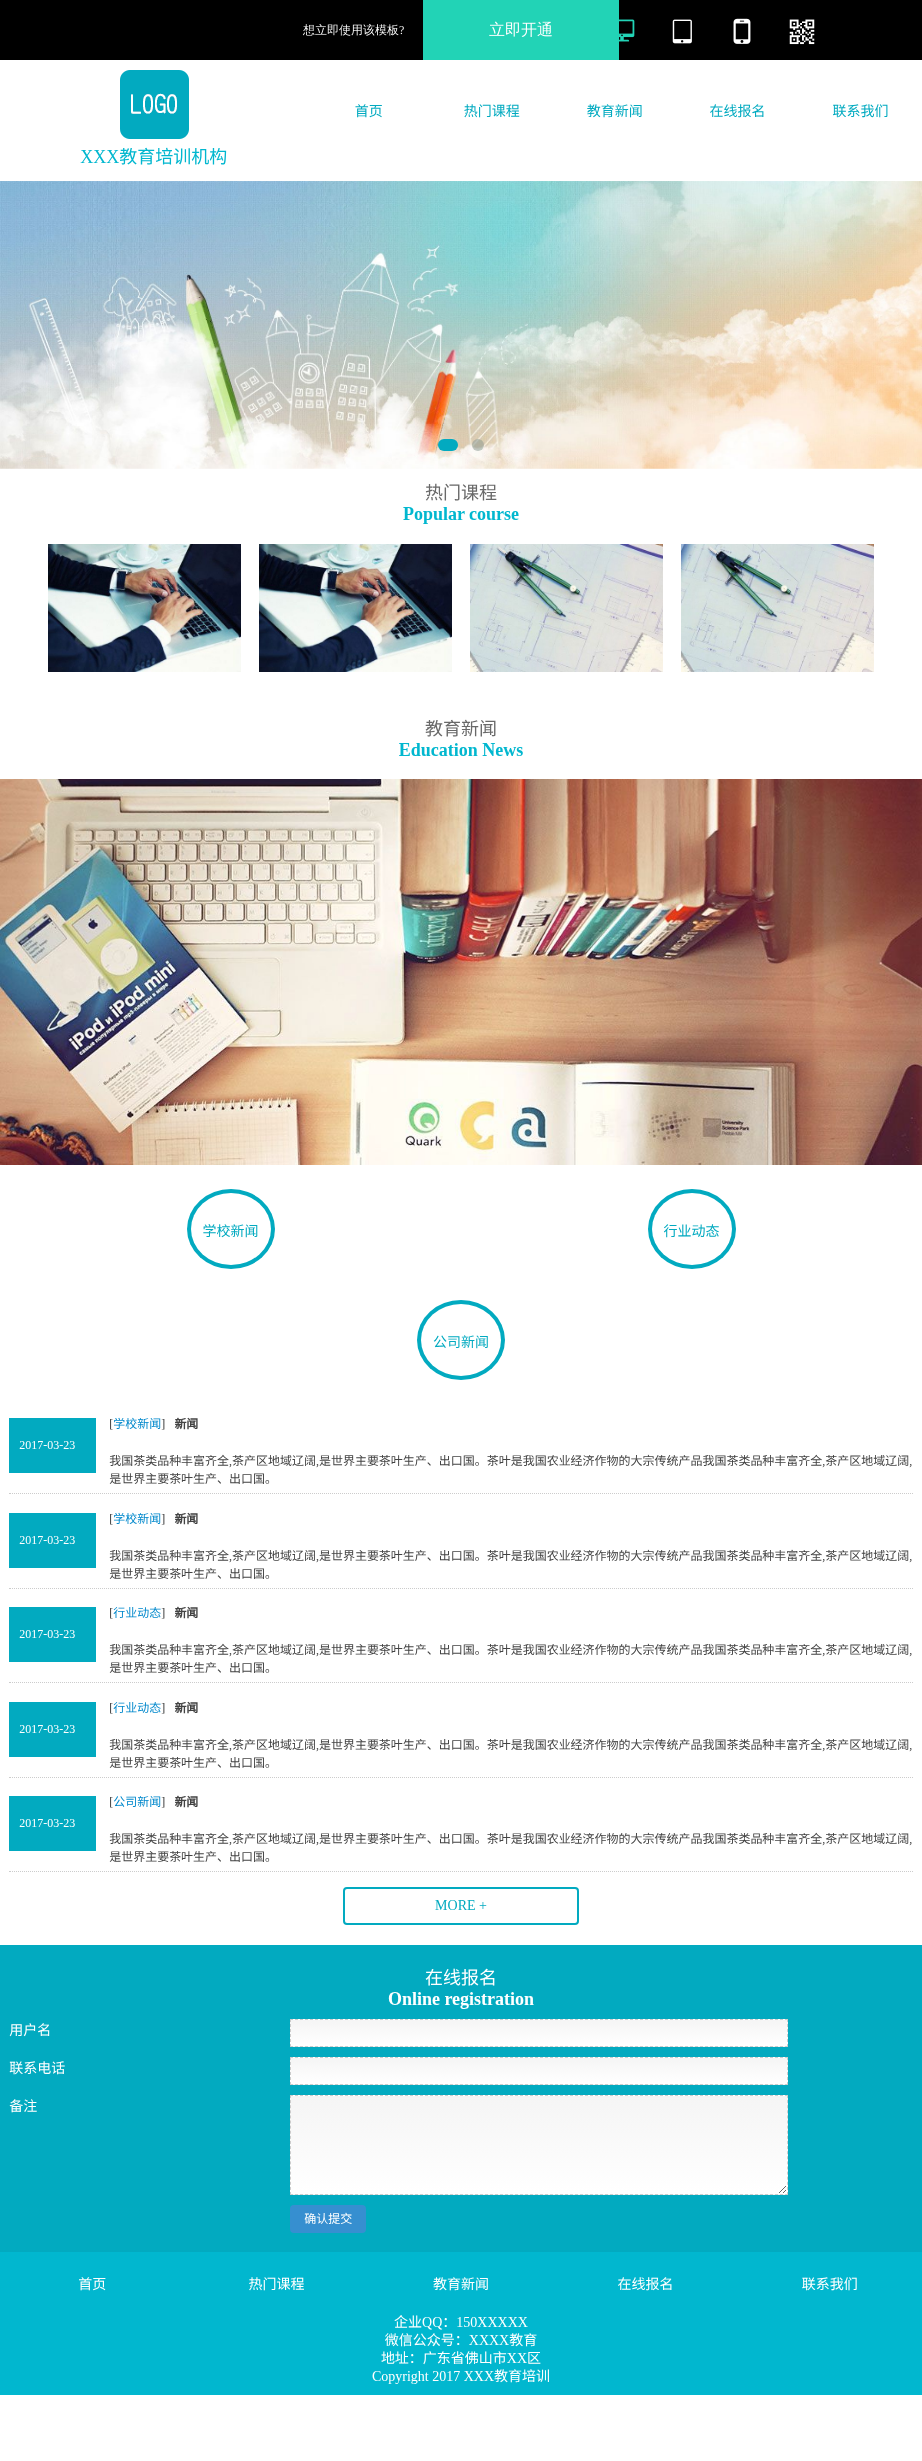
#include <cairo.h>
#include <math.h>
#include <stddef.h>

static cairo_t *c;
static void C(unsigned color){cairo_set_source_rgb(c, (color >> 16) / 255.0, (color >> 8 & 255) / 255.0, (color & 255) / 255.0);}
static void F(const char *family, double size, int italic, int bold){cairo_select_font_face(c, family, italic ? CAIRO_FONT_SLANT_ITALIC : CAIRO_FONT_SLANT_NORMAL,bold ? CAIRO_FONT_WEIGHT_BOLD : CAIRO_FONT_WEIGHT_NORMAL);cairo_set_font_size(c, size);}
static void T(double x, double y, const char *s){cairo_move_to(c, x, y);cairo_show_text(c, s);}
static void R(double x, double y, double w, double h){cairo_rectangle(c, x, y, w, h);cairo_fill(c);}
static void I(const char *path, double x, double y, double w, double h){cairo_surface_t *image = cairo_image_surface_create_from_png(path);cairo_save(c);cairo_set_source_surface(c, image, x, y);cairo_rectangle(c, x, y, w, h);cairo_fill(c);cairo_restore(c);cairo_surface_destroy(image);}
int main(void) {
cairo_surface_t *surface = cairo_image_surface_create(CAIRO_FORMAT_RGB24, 922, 2461);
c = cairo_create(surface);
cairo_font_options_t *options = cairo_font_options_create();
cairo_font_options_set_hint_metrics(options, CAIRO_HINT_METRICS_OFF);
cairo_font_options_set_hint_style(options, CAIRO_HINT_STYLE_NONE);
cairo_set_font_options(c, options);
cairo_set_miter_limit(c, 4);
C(0xffffff);
cairo_paint(c);
C(0x000000);
R(0,0,922,60);
F("WenQuanYi Zen Hei Medium",12,0,0);
C(0xffffff);
T(303,34,"想立即使用该模板");
F("Liberation Serif",12,0,0);
T(399,34,"?");
C(0x22d3b6);
R(423,0,196,60);
F("WenQuanYi Zen Hei Medium",16,0,0);
C(0xffffff);
T(489,35,"立即开通");
I("1.png",619,19,16,23);
I("2.png",672,19,20,25);
I("3.png",733,18,18,26);
I("4.png",789,19,26,26);
I("5.png",0,70,922,2325);
cairo_surface_write_to_png(surface, "o.png");
cairo_font_options_destroy(options);
cairo_destroy(c);
cairo_surface_destroy(surface);
return 0;
}
